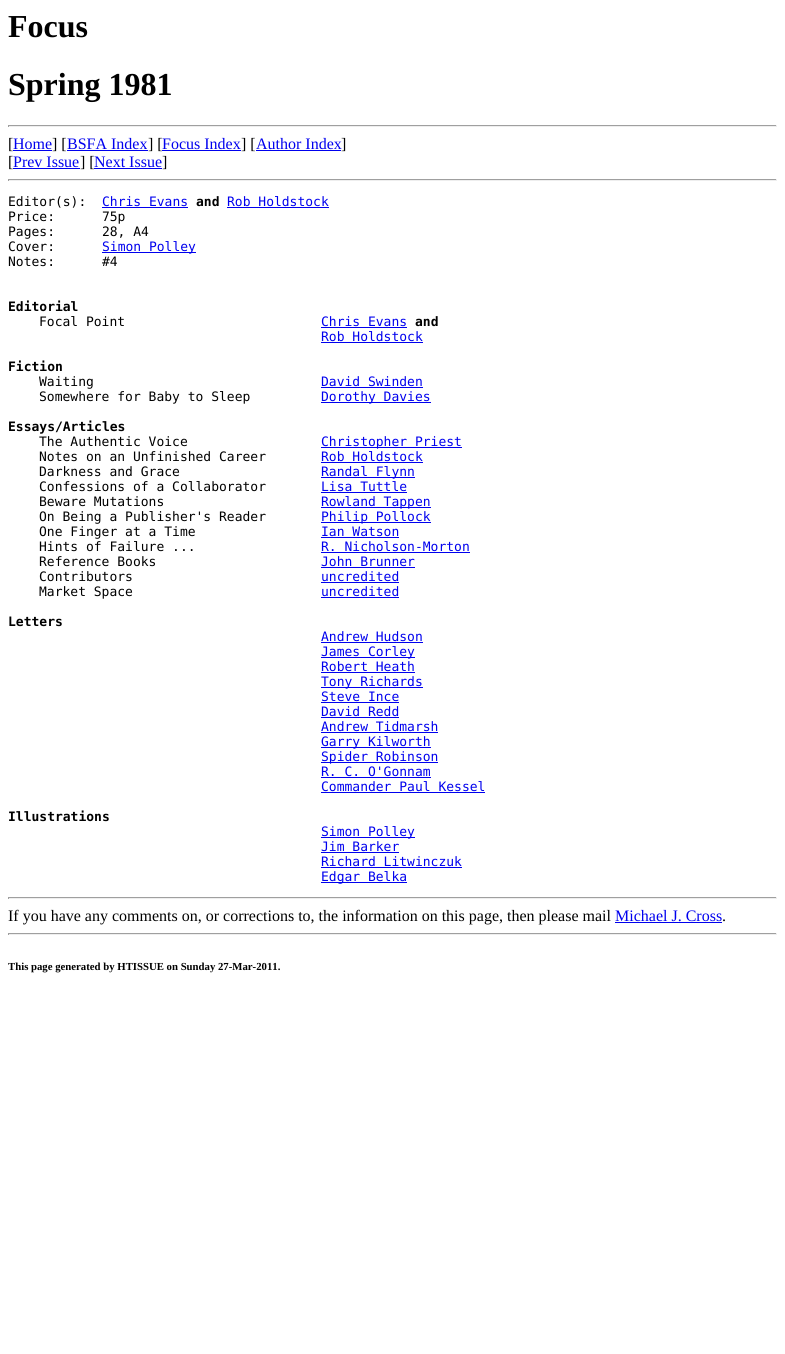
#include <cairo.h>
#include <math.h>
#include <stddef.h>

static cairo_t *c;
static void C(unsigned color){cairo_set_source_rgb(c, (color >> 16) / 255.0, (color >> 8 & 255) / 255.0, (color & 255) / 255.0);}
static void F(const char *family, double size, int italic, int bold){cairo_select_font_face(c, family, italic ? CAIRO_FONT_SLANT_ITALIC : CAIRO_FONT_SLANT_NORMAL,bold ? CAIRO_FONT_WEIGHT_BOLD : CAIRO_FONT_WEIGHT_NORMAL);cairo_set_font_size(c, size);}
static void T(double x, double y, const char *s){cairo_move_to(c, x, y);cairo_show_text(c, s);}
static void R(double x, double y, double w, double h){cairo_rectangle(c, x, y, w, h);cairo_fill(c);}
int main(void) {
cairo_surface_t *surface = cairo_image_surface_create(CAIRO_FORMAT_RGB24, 785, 1354);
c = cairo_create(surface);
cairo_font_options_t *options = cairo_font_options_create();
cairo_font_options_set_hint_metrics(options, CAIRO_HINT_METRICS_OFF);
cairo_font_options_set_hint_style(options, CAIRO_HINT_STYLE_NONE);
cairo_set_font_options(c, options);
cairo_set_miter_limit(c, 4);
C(0xffffff);
cairo_paint(c);
F("Liberation Serif",32,0,1);
C(0x000000);
T(8,37,"Focus");
T(8,95,"Spring 1981");
C(0x9f9f9f);
R(8,125,769,1);
C(0xeeeeee);
R(776,125,1,2);
R(8,126,769,1);
C(0x9f9f9f);
R(8,125,1,2);
F("Liberation Serif",16,0,0);
C(0x000000);
T(8,149,"[");
C(0x0000ee);
T(13,149,"Home");
R(13,150,39,1);
C(0x000000);
T(52,149,"] [");
C(0x0000ee);
T(67,149,"BSFA Index");
R(67,150,81,1);
C(0x000000);
T(148,149,"] [");
C(0x0000ee);
T(162,149,"Focus Index");
R(162,150,79,1);
C(0x000000);
T(241,149,"] [");
C(0x0000ee);
T(256,149,"Author Index");
R(256,150,85,1);
C(0x000000);
T(341,149,"]");
T(8,167,"[");
C(0x0000ee);
T(13,167,"Prev Issue");
R(13,168,67,1);
C(0x000000);
T(80,167,"] [");
C(0x0000ee);
T(94,167,"Next Issue");
R(94,168,68,1);
C(0x000000);
T(162,167,"]");
C(0x9f9f9f);
R(8,179,769,1);
C(0xeeeeee);
R(776,179,1,2);
R(8,180,769,1);
C(0x9f9f9f);
R(8,179,1,2);
F("DejaVu Sans Mono",13,0,0);
C(0x000000);
T(8,206,"Editor(s):");
C(0x0000ee);
T(102,206,"Chris Evans");
R(102,207,86,1);
F("DejaVu Sans Mono",13,0,1);
C(0x000000);
T(196,206,"and");
F("DejaVu Sans Mono",13,0,0);
C(0x0000ee);
T(227,206,"Rob Holdstock");
R(227,207,102,1);
C(0x000000);
T(8,221,"Price:      75p");
T(8,236,"Pages:      28, A4");
T(8,251,"Cover:");
C(0x0000ee);
R(102,252,94,1);
T(102,251,"Simon Polley");
C(0x000000);
T(8,266,"Notes:      #4");
F("DejaVu Sans Mono",13,0,1);
T(8,311,"Editorial");
F("DejaVu Sans Mono",13,0,0);
T(39,326,"Focal Point");
C(0x0000ee);
T(321,326,"Chris Evans");
R(321,327,86,1);
F("DejaVu Sans Mono",13,0,1);
C(0x000000);
T(415,326,"and");
F("DejaVu Sans Mono",13,0,0);
C(0x0000ee);
T(321,341,"Rob Holdstock");
R(321,342,102,1);
F("DejaVu Sans Mono",13,0,1);
C(0x000000);
T(8,371,"Fiction");
F("DejaVu Sans Mono",13,0,0);
T(39,386,"Waiting");
C(0x0000ee);
T(321,386,"David Swinden");
R(321,387,102,1);
C(0x000000);
T(39,401,"Somewhere for Baby to Sleep");
C(0x0000ee);
R(321,402,110,1);
T(321,401,"Dorothy Davies");
F("DejaVu Sans Mono",13,0,1);
C(0x000000);
T(8,431,"Essays/Articles");
F("DejaVu Sans Mono",13,0,0);
T(39,446,"The Authentic Voice");
C(0x0000ee);
R(321,447,141,1);
T(321,446,"Christopher Priest");
C(0x000000);
T(39,461,"Notes on an Unfinished Career");
C(0x0000ee);
T(321,461,"Rob Holdstock");
R(321,462,102,1);
C(0x000000);
T(39,476,"Darkness and Grace");
C(0x0000ee);
R(321,477,94,1);
T(321,476,"Randal Flynn");
C(0x000000);
T(39,491,"Confessions of a Collaborator");
C(0x0000ee);
T(321,491,"Lisa Tuttle");
R(321,492,86,1);
C(0x000000);
T(39,506,"Beware Mutations");
C(0x0000ee);
R(321,507,110,1);
T(321,506,"Rowland Tappen");
C(0x000000);
T(39,521,"On Being a Publisher's Reader");
C(0x0000ee);
R(321,522,110,1);
T(321,521,"Philip Pollock");
C(0x000000);
T(39,536,"One Finger at a Time");
C(0x0000ee);
T(321,536,"Ian Watson");
R(321,537,78,1);
C(0x000000);
T(39,551,"Hints of Failure ...");
C(0x0000ee);
T(321,551,"R. Nicholson-Morton");
R(321,552,149,1);
C(0x000000);
T(39,566,"Reference Books");
C(0x0000ee);
T(321,566,"John Brunner");
R(321,567,94,1);
C(0x000000);
T(39,581,"Contributors");
C(0x0000ee);
T(321,581,"uncredited");
R(321,582,78,1);
C(0x000000);
T(39,596,"Market Space");
C(0x0000ee);
T(321,596,"uncredited");
R(321,597,78,1);
F("DejaVu Sans Mono",13,0,1);
C(0x000000);
T(8,626,"Letters");
F("DejaVu Sans Mono",13,0,0);
C(0x0000ee);
T(321,641,"Andrew Hudson");
R(321,642,102,1);
R(321,657,94,1);
T(321,656,"James Corley");
T(321,671,"Robert Heath");
R(321,672,94,1);
R(321,687,102,1);
T(321,686,"Tony Richards");
T(321,701,"Steve Ince");
R(321,702,78,1);
T(321,716,"David Redd");
R(321,717,78,1);
T(321,731,"Andrew Tidmarsh");
R(321,732,117,1);
R(321,747,110,1);
T(321,746,"Garry Kilworth");
R(321,762,117,1);
T(321,761,"Spider Robinson");
T(321,776,"R. C. O'Gonnam");
R(321,777,110,1);
T(321,791,"Commander Paul Kessel");
R(321,792,164,1);
F("DejaVu Sans Mono",13,0,1);
C(0x000000);
T(8,821,"Illustrations");
C(0x0000ee);
R(321,837,94,1);
F("DejaVu Sans Mono",13,0,0);
T(321,836,"Simon Polley");
T(321,851,"Jim Barker");
R(321,852,78,1);
T(321,866,"Richard Litwinczuk");
R(321,867,141,1);
R(321,882,86,1);
T(321,881,"Edgar Belka");
C(0x9f9f9f);
R(8,897,769,1);
C(0xeeeeee);
R(776,897,1,2);
R(8,898,769,1);
C(0x9f9f9f);
R(8,897,1,2);
F("Liberation Serif",16,0,0);
C(0x000000);
T(8,921,"If you have any comments on, or corrections to, the information on this page, then please mail");
C(0x0000ee);
T(615,921,"Michael J. Cross");
R(615,922,107,1);
C(0x000000);
T(722,921,".");
C(0x9f9f9f);
R(8,933,769,1);
C(0xeeeeee);
R(776,933,1,2);
R(8,934,769,1);
C(0x9f9f9f);
R(8,933,1,2);
F("Liberation Serif",10.75,0,1);
C(0x000000);
T(8,970,"This page generated by HTISSUE on Sunday 27-Mar-2011.");
cairo_surface_write_to_png(surface, "o.png");
cairo_font_options_destroy(options);
cairo_destroy(c);
cairo_surface_destroy(surface);
return 0;
}
